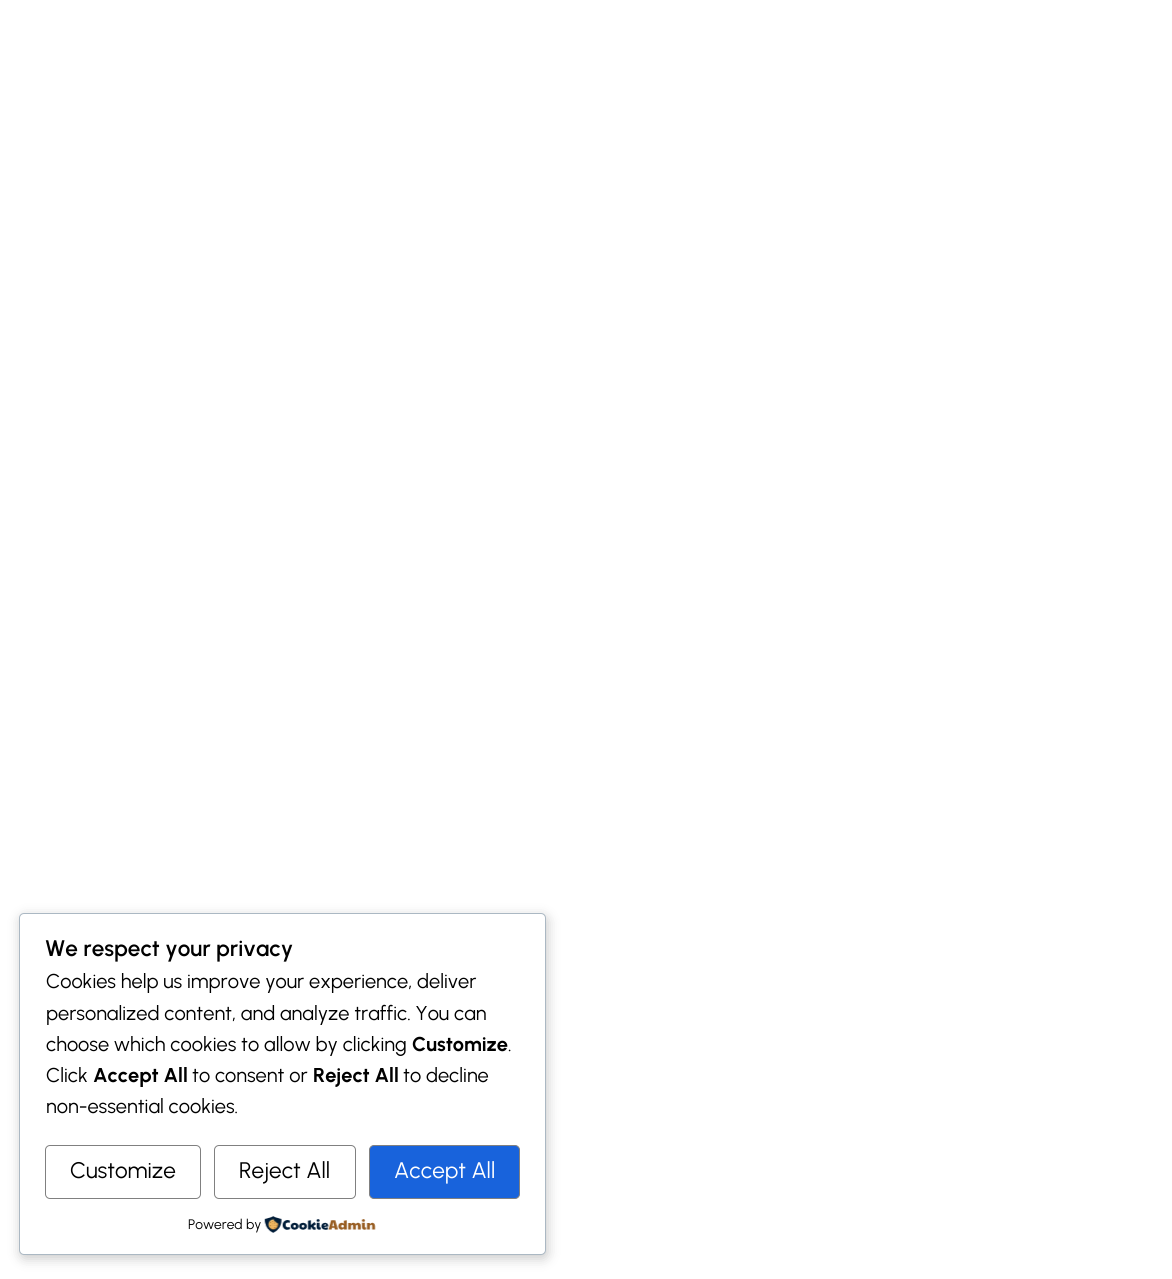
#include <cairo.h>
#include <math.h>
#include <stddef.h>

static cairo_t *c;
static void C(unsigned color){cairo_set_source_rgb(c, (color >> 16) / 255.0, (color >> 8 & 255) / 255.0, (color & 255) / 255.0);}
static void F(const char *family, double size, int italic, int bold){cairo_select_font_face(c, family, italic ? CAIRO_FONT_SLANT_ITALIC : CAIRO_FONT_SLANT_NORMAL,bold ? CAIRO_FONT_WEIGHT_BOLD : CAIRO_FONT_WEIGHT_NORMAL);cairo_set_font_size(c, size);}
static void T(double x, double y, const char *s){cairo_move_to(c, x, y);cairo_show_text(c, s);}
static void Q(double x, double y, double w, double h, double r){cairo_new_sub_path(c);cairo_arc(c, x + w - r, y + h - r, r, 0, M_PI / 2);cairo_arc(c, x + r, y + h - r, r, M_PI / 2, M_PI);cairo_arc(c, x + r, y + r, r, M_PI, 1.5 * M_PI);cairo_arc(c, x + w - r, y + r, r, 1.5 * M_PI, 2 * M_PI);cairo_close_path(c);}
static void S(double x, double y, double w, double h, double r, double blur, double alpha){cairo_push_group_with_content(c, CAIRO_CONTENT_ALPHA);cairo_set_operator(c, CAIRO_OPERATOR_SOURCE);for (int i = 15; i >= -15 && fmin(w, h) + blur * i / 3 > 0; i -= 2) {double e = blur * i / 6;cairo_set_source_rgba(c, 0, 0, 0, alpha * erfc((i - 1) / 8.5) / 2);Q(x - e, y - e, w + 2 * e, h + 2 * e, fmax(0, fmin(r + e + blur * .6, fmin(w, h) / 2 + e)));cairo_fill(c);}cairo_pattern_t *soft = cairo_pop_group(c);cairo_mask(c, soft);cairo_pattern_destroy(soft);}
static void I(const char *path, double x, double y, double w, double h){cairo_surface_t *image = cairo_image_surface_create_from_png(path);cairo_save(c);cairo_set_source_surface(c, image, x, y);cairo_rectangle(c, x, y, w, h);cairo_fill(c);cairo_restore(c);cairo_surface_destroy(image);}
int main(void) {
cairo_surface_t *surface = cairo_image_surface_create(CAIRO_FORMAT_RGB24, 1172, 1279);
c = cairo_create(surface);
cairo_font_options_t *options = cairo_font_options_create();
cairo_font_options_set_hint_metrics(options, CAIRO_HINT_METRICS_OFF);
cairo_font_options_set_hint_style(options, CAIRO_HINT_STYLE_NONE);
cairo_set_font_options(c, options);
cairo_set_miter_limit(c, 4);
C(0xffffff);
cairo_paint(c);
C(0x000000);
S(20,916,528,343,5,6,.2);
C(0xffffff);
Q(19.5,913.5,526,341,4.5);
cairo_fill_preserve(c);
C(0xabb8c3);
cairo_set_line_width(c,1);
cairo_stroke(c);
F("Urbanist SemiBold",22.5,0,0);
C(0x000000);
T(45,956,"We respect your privacy");
F("Urbanist",20,0,0);
T(46,988,"Cookies help us improve your experience, deliver");
T(46,1020,"personalized content, and analyze traffic. You can");
T(46,1051,"choose which cookies to allow by clicking");
F("Urbanist",20,0,1);
T(412,1051,"Customize");
F("Urbanist",20,0,0);
T(508,1051,".");
T(46,1082,"Click");
F("Urbanist",20,0,1);
T(93,1082,"Accept All");
F("Urbanist",20,0,0);
T(192,1082,"to consent or");
F("Urbanist",20,0,1);
T(313,1082,"Reject All");
F("Urbanist",20,0,0);
T(403,1082,"to decline");
T(46,1113,"non-essential cookies.");
Q(45.5,1145.5,155,53,4.5);
C(0x808080);
cairo_stroke(c);
F("Urbanist",22.5,0,0);
C(0x000000);
T(70,1178,"Customize");
Q(214.5,1145.5,141,53,4.5);
C(0x808080);
cairo_stroke(c);
C(0x000000);
T(239,1178,"Reject All");
C(0x1863dc);
Q(369.5,1145.5,150,53,4.5);
cairo_fill_preserve(c);
C(0x808080);
cairo_stroke(c);
C(0xffffff);
T(394,1178,"Accept All");
F("Urbanist",13.75,0,0);
C(0x000000);
T(188,1229,"Powered by");
I("1.png",264,1216,112,17);
cairo_surface_write_to_png(surface, "o.png");
cairo_font_options_destroy(options);
cairo_destroy(c);
cairo_surface_destroy(surface);
return 0;
}
